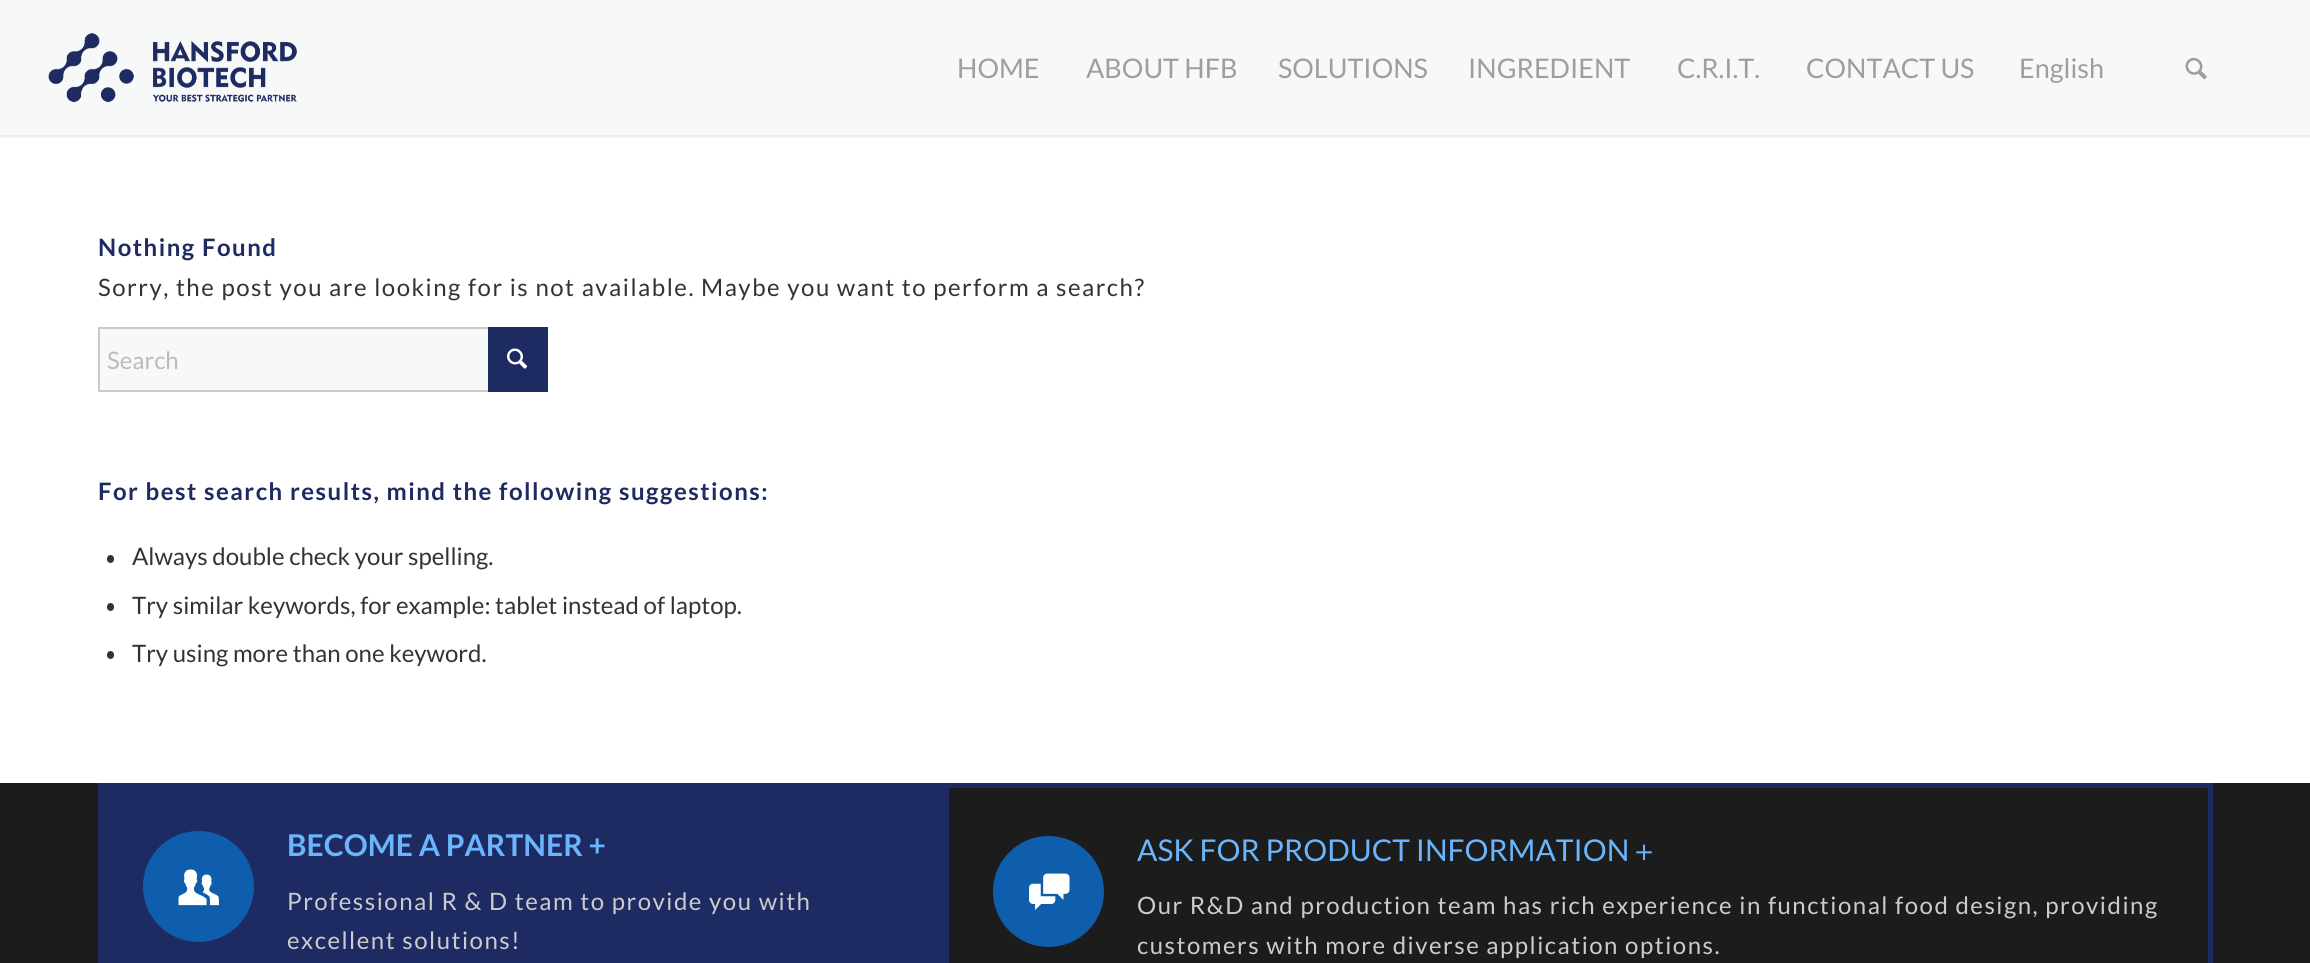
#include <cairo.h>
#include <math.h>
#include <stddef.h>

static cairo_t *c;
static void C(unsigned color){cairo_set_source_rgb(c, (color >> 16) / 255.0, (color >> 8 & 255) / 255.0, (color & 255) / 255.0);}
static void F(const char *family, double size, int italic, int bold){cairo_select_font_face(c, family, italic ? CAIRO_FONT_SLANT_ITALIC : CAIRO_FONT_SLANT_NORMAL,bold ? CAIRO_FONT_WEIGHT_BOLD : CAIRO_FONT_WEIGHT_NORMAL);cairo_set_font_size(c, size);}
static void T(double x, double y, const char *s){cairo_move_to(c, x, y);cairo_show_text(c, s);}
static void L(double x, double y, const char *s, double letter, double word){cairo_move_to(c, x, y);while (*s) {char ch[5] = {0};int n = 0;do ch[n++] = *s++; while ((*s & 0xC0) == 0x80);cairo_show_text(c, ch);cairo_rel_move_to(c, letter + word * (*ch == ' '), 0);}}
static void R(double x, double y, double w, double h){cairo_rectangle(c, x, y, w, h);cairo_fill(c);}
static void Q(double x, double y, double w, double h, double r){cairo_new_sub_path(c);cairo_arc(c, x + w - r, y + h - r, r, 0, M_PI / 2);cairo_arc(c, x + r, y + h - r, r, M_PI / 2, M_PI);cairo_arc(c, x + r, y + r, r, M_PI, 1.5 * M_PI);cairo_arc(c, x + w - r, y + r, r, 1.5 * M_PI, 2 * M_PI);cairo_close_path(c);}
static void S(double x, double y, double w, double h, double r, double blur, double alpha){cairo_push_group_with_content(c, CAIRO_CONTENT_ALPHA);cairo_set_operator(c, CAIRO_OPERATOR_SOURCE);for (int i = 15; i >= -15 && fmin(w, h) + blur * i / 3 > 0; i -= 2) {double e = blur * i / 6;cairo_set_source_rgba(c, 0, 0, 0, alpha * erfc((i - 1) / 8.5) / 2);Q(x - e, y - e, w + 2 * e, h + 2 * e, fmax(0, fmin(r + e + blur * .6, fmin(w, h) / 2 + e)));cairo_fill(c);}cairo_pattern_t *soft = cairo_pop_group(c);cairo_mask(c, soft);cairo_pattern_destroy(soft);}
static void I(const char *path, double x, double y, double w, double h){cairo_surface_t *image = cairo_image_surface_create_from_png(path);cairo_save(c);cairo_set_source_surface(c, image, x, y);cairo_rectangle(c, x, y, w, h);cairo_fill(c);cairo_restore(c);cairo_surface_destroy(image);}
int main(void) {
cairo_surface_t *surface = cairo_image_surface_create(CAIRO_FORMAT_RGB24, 2310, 963);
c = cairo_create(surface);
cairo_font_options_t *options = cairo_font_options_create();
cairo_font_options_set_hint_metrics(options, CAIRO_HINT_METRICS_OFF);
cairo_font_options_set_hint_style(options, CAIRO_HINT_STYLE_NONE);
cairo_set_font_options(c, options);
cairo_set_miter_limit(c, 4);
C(0xf7f8f8);
cairo_paint(c);
C(0xffffff);
R(0,135,2310,648);
cairo_save(c);
cairo_rectangle(c,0,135,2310,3);
cairo_clip(c);
C(0x000000);
S(-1,-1,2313,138,0,1.5,.1);
cairo_restore(c);
I("1.png",48,33,249,70);
F("Lato",27,0,0);
C(0x9e9e9e);
T(957,78,"HOME");
T(1086,78,"ABOUT HFB");
T(1278,78,"SOLUTIONS");
T(1468,78,"INGREDIENT");
T(1677,78,"C.R.I.T.");
T(1806,78,"CONTACT US");
T(2019,78,"English");
I("2.png",2185,57,22,23);
F("Lato",24,0,1);
C(0x1e2a62);
L(98,256,"Nothing Found",1.5,0);
F("Lato",24,0,0);
C(0x333333);
L(98,296,"Sorry, the post you are looking for is not available. Maybe you want to perform a search?",1.5,0);
C(0xf7f8f8);
R(100,329,388,61);
cairo_rectangle(c,99,328,448,63);
C(0xc9caca);
cairo_stroke(c);
C(0xbabbbb);
T(107,369,"Search");
C(0x1e2a62);
R(488,327,60,65);
I("3.png",507,348,21,21);
F("Lato",24,0,1);
L(98,500,"For best search results, mind the following suggestions:",1.5,0);
C(0x333333);
Q(107,555,7,8,3.5);
cairo_fill(c);
F("Lato",24,0,0);
T(132,565,"Always double check your spelling.");
Q(107,603,7,8,3.5);
cairo_fill(c);
T(132,614,"Try similar keywords, for example: tablet instead of laptop.");
Q(107,651,7,8,3.5);
cairo_fill(c);
T(132,662,"Try using more than one keyword.");
C(0x1c1c1c);
R(0,783,2310,180);
C(0x1e2a62);
R(98,783,846,180);
C(0x0f5ead);
cairo_new_path(c);
cairo_arc(c,198.5,886.5,54.5,0,2 * M_PI);
cairo_fill_preserve(c);
cairo_stroke(c);
I("4.png",178,869,41,37);
F("Lato",30,0,1);
C(0x6ab5fc);
T(287,856,"BECOME A PARTNER +");
F("Lato",24,0,0);
C(0xcccccc);
L(287,910,"Professional R & D team to provide you with",1.5,0);
L(287,949,"excellent solutions!",1.5,0);
cairo_rectangle(c,946.5,785.5,1264,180);
C(0x1e2a62);
cairo_set_line_width(c,5);
cairo_stroke(c);
C(0x0f5ead);
cairo_arc(c,1048.5,891.5,54.5,0,2 * M_PI);
cairo_fill_preserve(c);
cairo_set_line_width(c,2);
cairo_stroke(c);
I("5.png",1029,873,41,37);
F("Lato",30,0,0);
C(0x6ab5fc);
T(1137,861,"ASK FOR PRODUCT INFORMATION");
F("WenQuanYi Zen Hei Medium",30,0,0);
T(1629,861,"＋");
F("Lato",24,0,0);
C(0xcccccc);
L(1137,914,"Our R&D and production team has rich experience in functional food design, providing",1.5,0);
L(1137,954,"customers with more diverse application options.",1.5,0);
cairo_surface_write_to_png(surface, "o.png");
cairo_font_options_destroy(options);
cairo_destroy(c);
cairo_surface_destroy(surface);
return 0;
}
